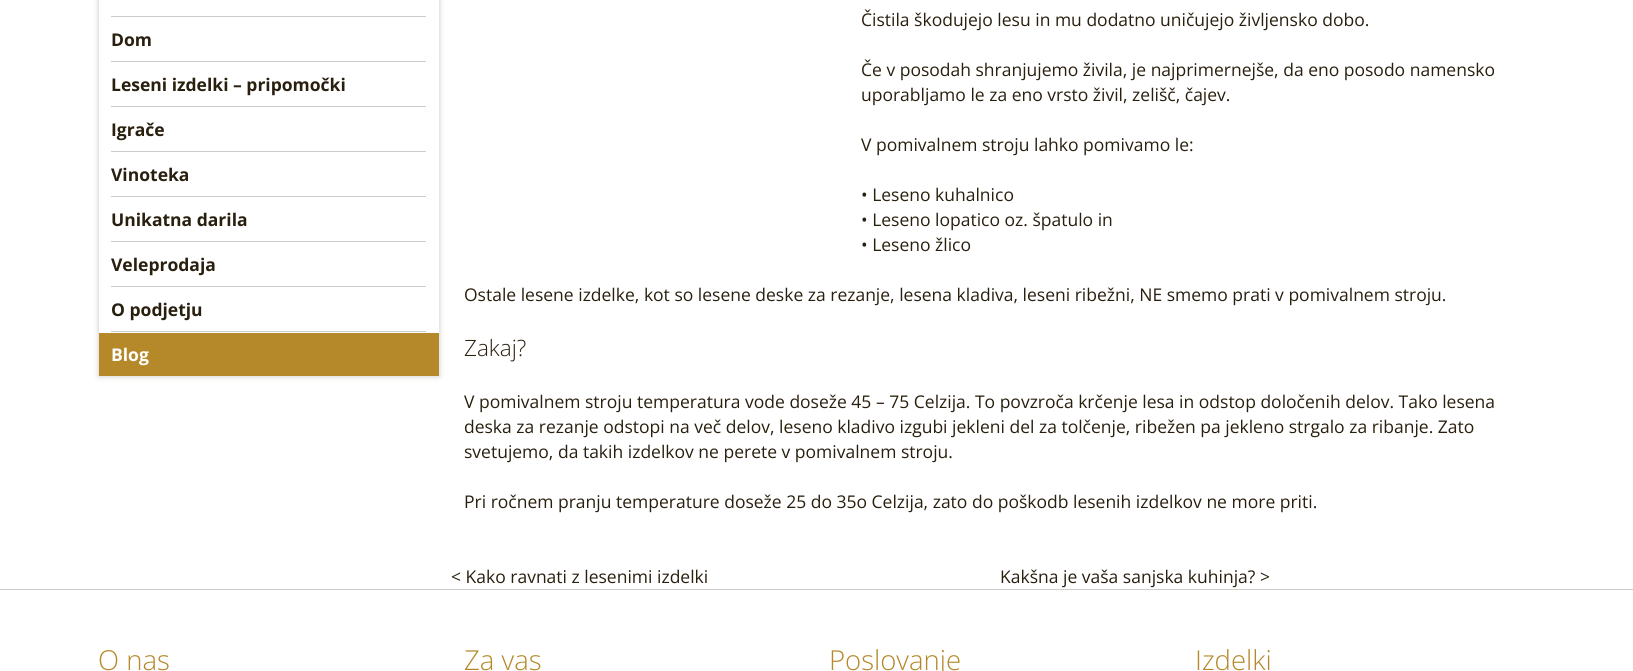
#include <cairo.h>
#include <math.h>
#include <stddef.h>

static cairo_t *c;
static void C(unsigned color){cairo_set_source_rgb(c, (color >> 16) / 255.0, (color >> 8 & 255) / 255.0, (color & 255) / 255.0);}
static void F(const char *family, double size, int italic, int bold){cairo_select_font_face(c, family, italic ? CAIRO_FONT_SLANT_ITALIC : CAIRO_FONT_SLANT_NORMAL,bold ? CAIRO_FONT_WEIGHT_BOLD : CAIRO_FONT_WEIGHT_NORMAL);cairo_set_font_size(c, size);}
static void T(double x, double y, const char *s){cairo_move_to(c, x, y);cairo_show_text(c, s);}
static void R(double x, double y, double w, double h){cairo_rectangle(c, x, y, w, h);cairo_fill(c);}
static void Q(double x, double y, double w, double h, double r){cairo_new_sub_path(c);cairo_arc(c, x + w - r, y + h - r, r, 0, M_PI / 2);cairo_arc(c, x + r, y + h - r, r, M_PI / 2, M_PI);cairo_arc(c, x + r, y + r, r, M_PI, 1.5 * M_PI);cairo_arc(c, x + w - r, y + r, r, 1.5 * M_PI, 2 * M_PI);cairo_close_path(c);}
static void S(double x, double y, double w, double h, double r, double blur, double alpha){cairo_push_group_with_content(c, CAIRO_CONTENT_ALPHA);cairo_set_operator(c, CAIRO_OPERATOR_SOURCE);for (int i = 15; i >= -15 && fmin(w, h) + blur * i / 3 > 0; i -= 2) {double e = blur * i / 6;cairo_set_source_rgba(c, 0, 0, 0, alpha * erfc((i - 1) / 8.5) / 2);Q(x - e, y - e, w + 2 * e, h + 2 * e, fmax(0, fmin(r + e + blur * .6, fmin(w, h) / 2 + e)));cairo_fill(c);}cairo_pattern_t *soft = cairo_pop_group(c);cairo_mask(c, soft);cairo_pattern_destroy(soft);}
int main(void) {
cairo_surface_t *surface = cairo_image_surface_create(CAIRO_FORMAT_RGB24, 1633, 671);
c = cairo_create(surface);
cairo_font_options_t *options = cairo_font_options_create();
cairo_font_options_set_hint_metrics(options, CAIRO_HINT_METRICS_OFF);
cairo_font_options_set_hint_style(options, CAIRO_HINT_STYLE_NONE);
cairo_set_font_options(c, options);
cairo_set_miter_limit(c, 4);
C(0xffffff);
cairo_paint(c);
cairo_save(c);
cairo_set_fill_rule(c,CAIRO_FILL_RULE_EVEN_ODD);
cairo_new_path(c);
cairo_move_to(c,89,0);
cairo_line_to(c,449,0);
cairo_line_to(c,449,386);
cairo_line_to(c,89,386);
cairo_close_path(c);
cairo_move_to(c,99,-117);
cairo_line_to(c,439,-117);
cairo_line_to(c,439,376);
cairo_line_to(c,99,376);
cairo_close_path(c);
cairo_clip(c);
C(0x291f0e);
S(99,-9,340,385,0,3,.25);
cairo_restore(c);
C(0xcccccc);
R(111,16,315,1);
R(111,61,315,1);
F("Open Sans",17.5,0,1);
C(0x291f0e);
T(111,46,"Dom");
C(0xcccccc);
R(111,106,315,1);
C(0x291f0e);
T(111,91,"Leseni izdelki – pripomočki");
C(0xcccccc);
R(111,151,315,1);
C(0x291f0e);
T(111,136,"Igrače");
C(0xcccccc);
R(111,196,315,1);
C(0x291f0e);
T(111,181,"Vinoteka");
C(0xcccccc);
R(111,241,315,1);
C(0x291f0e);
T(111,226,"Unikatna darila");
C(0xcccccc);
R(111,286,315,1);
C(0x291f0e);
T(111,271,"Veleprodaja");
C(0xcccccc);
R(111,331,315,1);
C(0x291f0e);
T(111,316,"O podjetju");
C(0xb5882a);
R(99,333,340,43);
C(0xffffff);
T(111,361,"Blog");
F("Open Sans",17.5,0,0);
C(0x291f0e);
T(861,26,"Čistila škodujejo lesu in mu dodatno uničujejo življensko dobo.");
T(861,76,"Če v posodah shranjujemo živila, je najprimernejše, da eno posodo namensko");
T(861,101,"uporabljamo le za eno vrsto živil, zelišč, čajev.");
T(861,151,"V pomivalnem stroju lahko pomivamo le:");
T(861,201,"• Leseno kuhalnico");
T(861,226,"• Leseno lopatico oz. špatulo in");
T(861,251,"• Leseno žlico");
T(464,301,"Ostale lesene izdelke, kot so lesene deske za rezanje, lesena kladiva, leseni ribežni, NE smemo prati v pomivalnem stroju.");
F("Open Sans Light",22.5,0,0);
T(464,356,"Zakaj?");
F("Open Sans",17.5,0,0);
T(464,408,"V pomivalnem stroju temperatura vode doseže 45 – 75 Celzija. To povzroča krčenje lesa in odstop določenih delov. Tako lesena");
T(464,433,"deska za rezanje odstopi na več delov, leseno kladivo izgubi jekleni del za tolčenje, ribežen pa jekleno strgalo za ribanje. Zato");
T(464,458,"svetujemo, da takih izdelkov ne perete v pomivalnem stroju.");
T(464,508,"Pri ročnem pranju temperature doseže 25 do 35о Celzija, zato do poškodb lesenih izdelkov ne more priti.");
T(451,583,"< Kako ravnati z lesenimi izdelki");
T(1000,583,"Kakšna je vaša sanjska kuhinja? >");
C(0xcccccc);
R(0,589,1633,1);
F("Open Sans Light",27.5,0,0);
C(0xb5882a);
T(98,670,"O nas");
T(464,670,"Za vas");
T(829,670,"Poslovanje");
T(1195,670,"Izdelki");
cairo_surface_write_to_png(surface, "o.png");
cairo_font_options_destroy(options);
cairo_destroy(c);
cairo_surface_destroy(surface);
return 0;
}
